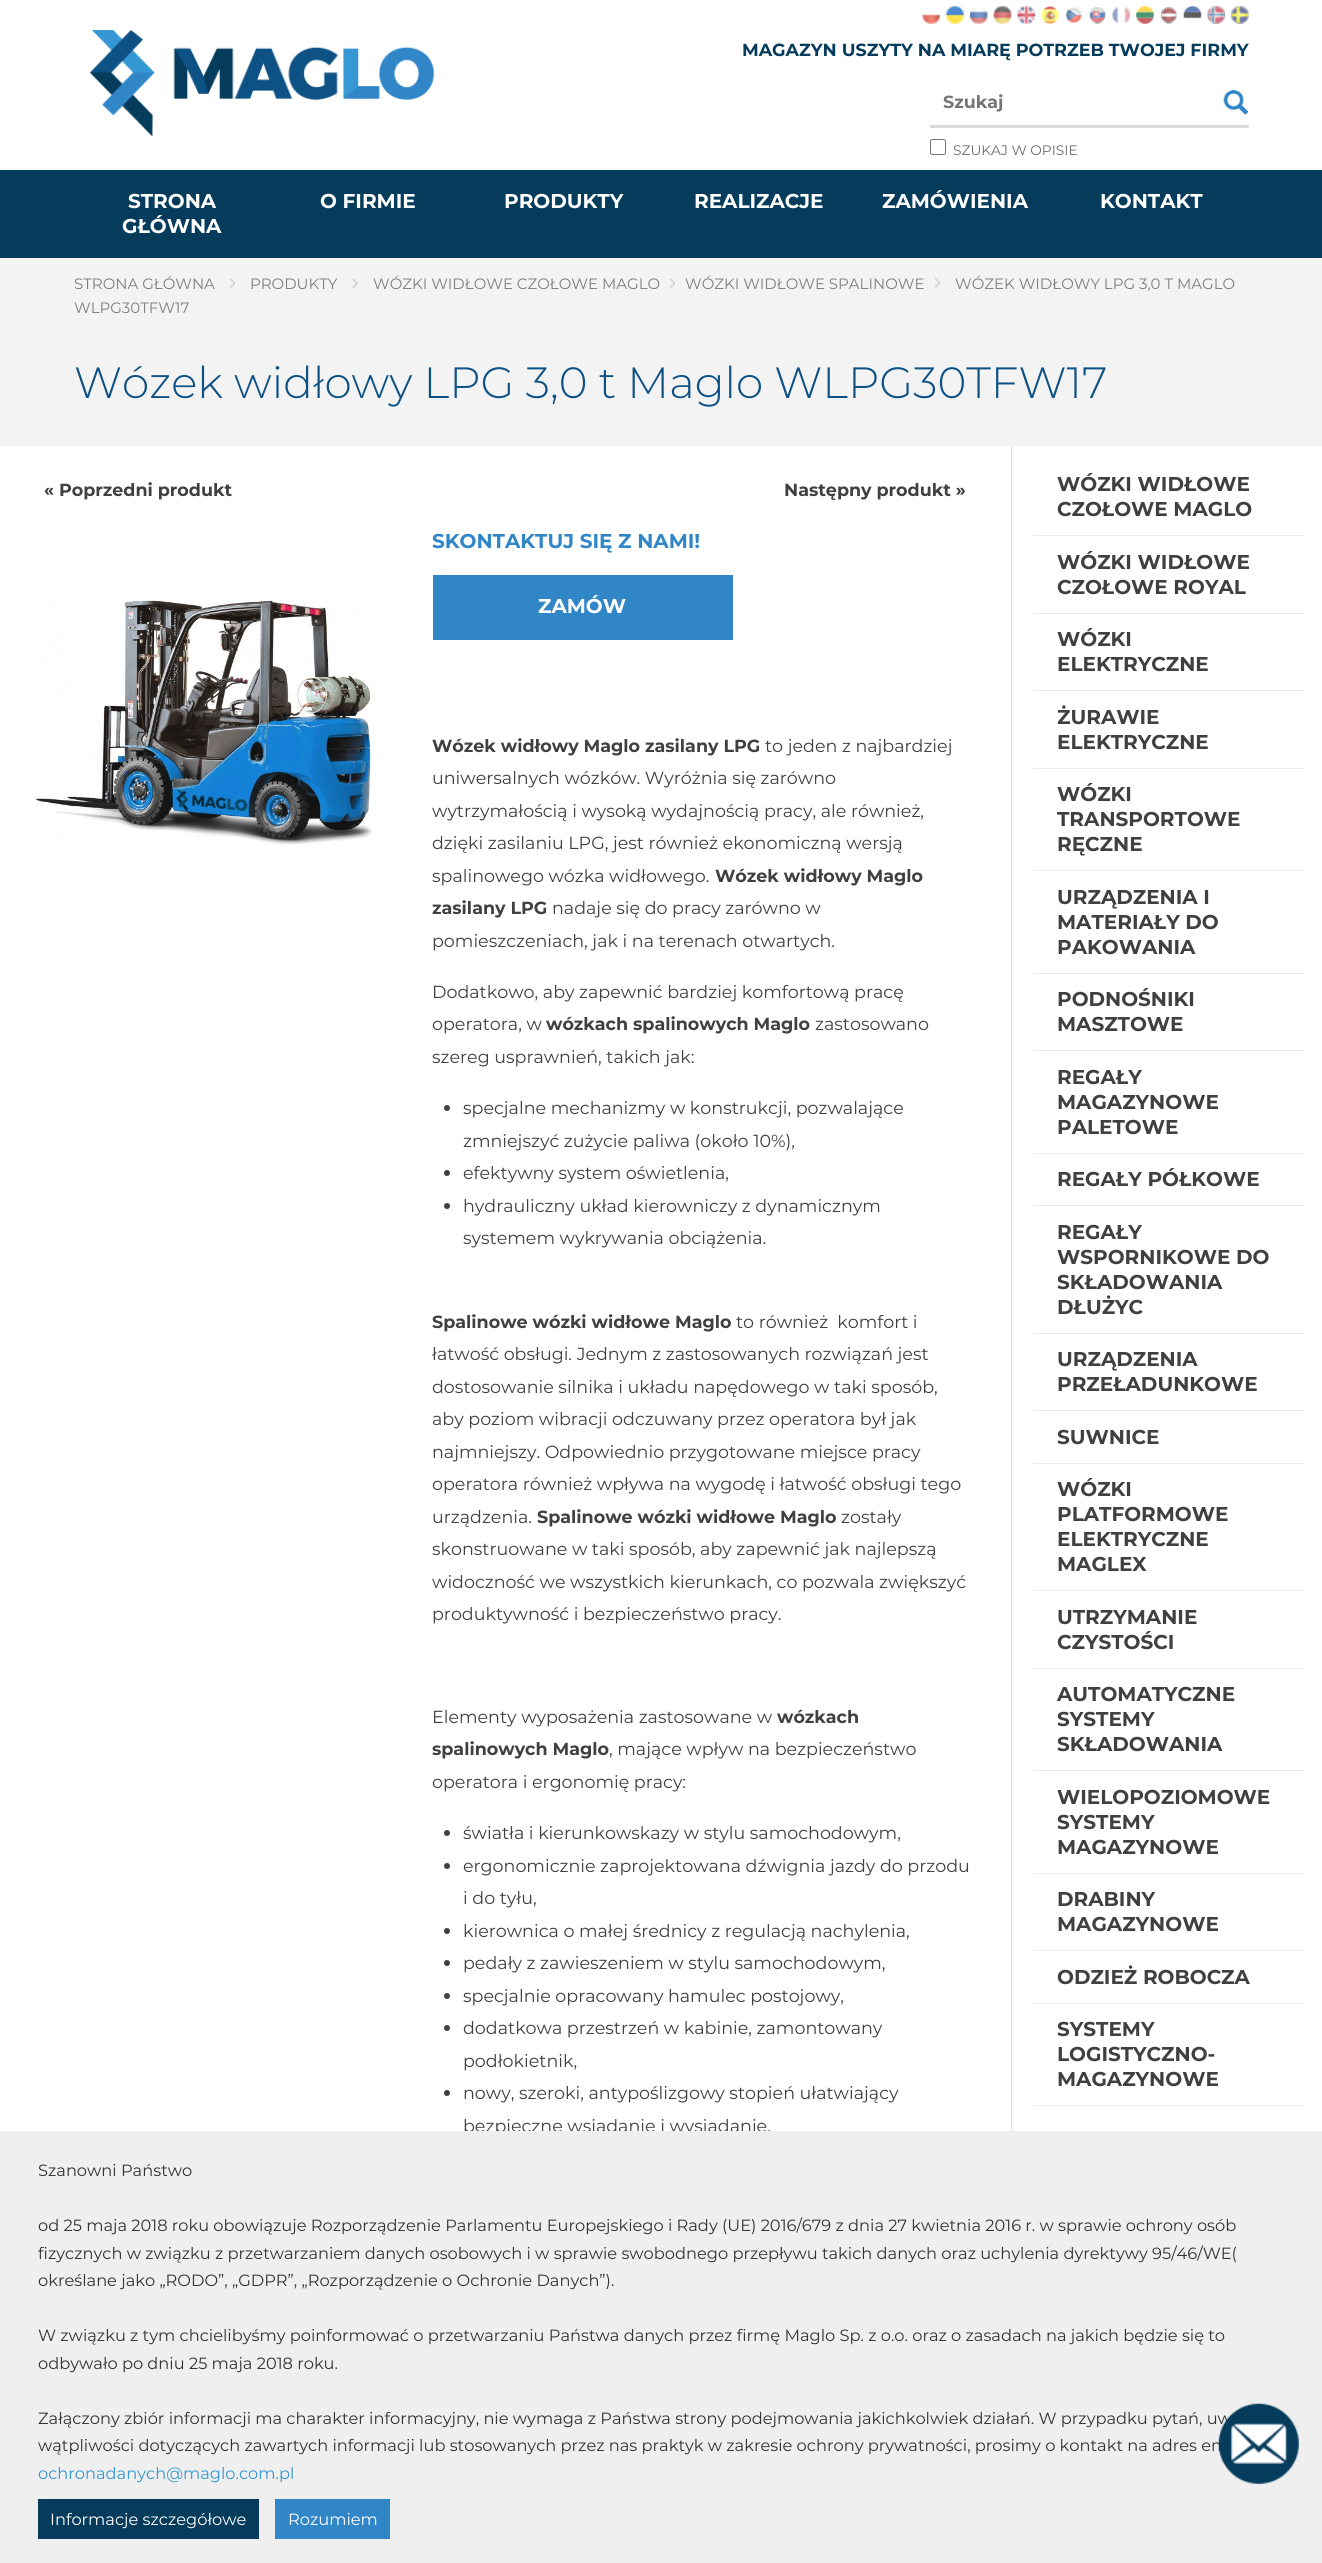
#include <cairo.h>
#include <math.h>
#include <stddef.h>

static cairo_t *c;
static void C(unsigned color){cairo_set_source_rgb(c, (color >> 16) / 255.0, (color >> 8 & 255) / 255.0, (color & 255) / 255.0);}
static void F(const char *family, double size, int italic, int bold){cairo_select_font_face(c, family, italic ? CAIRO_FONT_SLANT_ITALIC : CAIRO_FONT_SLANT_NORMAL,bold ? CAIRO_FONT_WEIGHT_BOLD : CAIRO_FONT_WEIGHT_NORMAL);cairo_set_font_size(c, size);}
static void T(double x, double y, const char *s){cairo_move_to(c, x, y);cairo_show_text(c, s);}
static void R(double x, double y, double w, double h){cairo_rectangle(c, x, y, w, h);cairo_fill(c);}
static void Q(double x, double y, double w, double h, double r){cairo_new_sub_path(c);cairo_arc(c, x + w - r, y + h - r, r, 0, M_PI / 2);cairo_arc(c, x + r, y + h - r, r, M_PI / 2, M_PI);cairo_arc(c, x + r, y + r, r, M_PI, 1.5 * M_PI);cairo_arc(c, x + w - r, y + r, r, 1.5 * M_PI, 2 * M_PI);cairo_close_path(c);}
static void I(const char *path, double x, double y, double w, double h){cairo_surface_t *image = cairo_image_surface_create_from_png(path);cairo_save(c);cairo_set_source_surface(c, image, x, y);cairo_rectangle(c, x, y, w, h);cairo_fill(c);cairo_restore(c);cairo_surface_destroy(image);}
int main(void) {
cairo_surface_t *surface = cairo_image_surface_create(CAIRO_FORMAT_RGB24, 1322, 2563);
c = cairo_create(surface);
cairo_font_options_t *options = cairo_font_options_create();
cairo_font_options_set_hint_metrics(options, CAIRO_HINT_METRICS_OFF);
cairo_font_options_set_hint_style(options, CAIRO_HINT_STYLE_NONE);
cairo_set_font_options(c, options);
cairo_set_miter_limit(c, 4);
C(0xffffff);
cairo_paint(c);
I("1.png",922,11,18,13);
I("2.png",946,6,18,18);
I("3.png",970,7,18,17);
I("4.png",993,6,19,18);
I("5.png",1017,6,18,18);
I("6.png",1041,6,18,18);
I("7.png",1066,7,16,16);
I("8.png",1089,7,17,17);
I("9.png",1112,6,18,18);
I("10.png",1136,6,18,18);
I("11.png",1161,7,16,17);
I("12.png",1183,6,19,17);
I("13.png",1207,6,18,18);
I("14.png",1231,6,18,18);
I("15.png",90,30,344,107);
F("Montserrat",17.5,0,1);
C(0x053b5b);
T(742,56,"MAGAZYN USZYTY NA MIARĘ POTRZEB TWOJEJ FIRMY");
C(0xdbdbdb);
R(930,125,319,3);
C(0x757575);
T(943,108,"Szukaj");
I("16.png",1223,90,26,25);
Q(930.5,139.5,15,15,2);
C(0x767676);
cairo_set_line_width(c,1);
cairo_stroke(c);
F("Montserrat",13.75,0,0);
C(0x6d6d6d);
T(953,155,"SZUKAJ W OPISIE");
C(0x053b5b);
R(0,170,1322,88);
F("Montserrat",20,0,1);
C(0xffffff);
T(128,208,"STRONA");
T(122,233,"GŁÓWNA");
T(320,208,"O FIRMIE");
T(504,208,"PRODUKTY");
T(694,208,"REALIZACJE");
T(882,208,"ZAMÓWIENIA");
T(1100,208,"KONTAKT");
C(0xf3f3f3);
R(0,258,1322,188);
F("Montserrat",15,0,0);
C(0x7e7e7e);
T(74,289,"STRONA GŁÓWNA");
I("17.png",230,278,5,10);
T(250,289,"PRODUKTY");
I("18.png",352,278,6,10);
T(373,289,"WÓZKI WIDŁOWE CZOŁOWE MAGLO");
I("19.png",670,278,5,10);
T(685,289,"WÓZKI WIDŁOWE SPALINOWE");
I("19.png",935,278,5,10);
T(955,289,"WÓZEK WIDŁOWY LPG 3,0 T MAGLO");
T(74,313,"WLPG30TFW17");
F("Montserrat Light",43.75,0,0);
C(0x0e5285);
T(74,398,"Wózek widłowy LPG 3,0 t Maglo WLPG30TFW17");
F("Montserrat",17.5,0,1);
C(0x404040);
T(44,496,"« Poprzedni produkt");
T(784,496,"Następny produkt »");
I("20.png",34,598,342,247);
F("Montserrat",20,0,1);
C(0x3186c7);
T(432,548,"SKONTAKTUJ SIĘ Z NAMI!");
R(433,575,300,65);
C(0xffffff);
T(538,613,"ZAMÓW");
F("Montserrat",17.5,0,1);
C(0x404040);
T(432,752,"Wózek widłowy Maglo zasilany LPG");
F("Montserrat",17.5,0,0);
T(765,752,"to jeden z najbardziej");
T(432,784,"uniwersalnych wózków. Wyróżnia się zarówno");
T(432,817,"wytrzymałością i wysoką wydajnością pracy, ale również,");
T(432,849,"dzięki zasilaniu LPG, jest również ekonomiczną wersją");
T(432,882,"spalinowego wózka widłowego.");
F("Montserrat",17.5,0,1);
T(715,882,"Wózek widłowy Maglo");
T(432,914,"zasilany LPG");
F("Montserrat",17.5,0,0);
T(552,914,"nadaje się do pracy zarówno w");
T(432,947,"pomieszczeniach, jak i na terenach otwartych.");
T(432,998,"Dodatkowo, aby zapewnić bardziej komfortową pracę");
T(432,1030,"operatora, w");
F("Montserrat",17.5,0,1);
T(546,1030,"wózkach spalinowych Maglo");
F("Montserrat",17.5,0,0);
T(815,1030,"zastosowano");
T(432,1063,"szereg usprawnień, takich jak:");
cairo_new_path(c);
cairo_arc(c,447,1108,3,0,2 * M_PI);
cairo_fill(c);
T(463,1114,"specjalne mechanizmy w konstrukcji, pozwalające");
T(463,1147,"zmniejszyć zużycie paliwa (około 10%),");
cairo_new_path(c);
cairo_arc(c,447,1173,3,0,2 * M_PI);
cairo_fill(c);
T(463,1179,"efektywny system oświetlenia,");
cairo_new_path(c);
cairo_arc(c,447,1206,3,0,2 * M_PI);
cairo_fill(c);
T(463,1212,"hydrauliczny układ kierowniczy z dynamicznym");
T(463,1244,"systemem wykrywania obciążenia.");
F("Montserrat",17.5,0,1);
T(432,1328,"Spalinowe wózki widłowe Maglo");
F("Montserrat",17.5,0,0);
T(736,1328,"to również  komfort i");
T(432,1360,"łatwość obsługi. Jednym z zastosowanych rozwiązań jest");
T(432,1393,"dostosowanie silnika i układu napędowego w taki sposób,");
T(432,1425,"aby poziom wibracji odczuwany przez operatora był jak");
T(432,1458,"najmniejszy. Odpowiednio przygotowane miejsce pracy");
T(432,1490,"operatora również wpływa na wygodę i łatwość obsługi tego");
T(432,1523,"urządzenia.");
F("Montserrat",17.5,0,1);
T(537,1523,"Spalinowe wózki widłowe Maglo");
F("Montserrat",17.5,0,0);
T(841,1523,"zostały");
T(432,1555,"skonstruowane w taki sposób, aby zapewnić jak najlepszą");
T(432,1588,"widoczność we wszystkich kierunkach, co pozwala zwiększyć");
T(432,1620,"produktywność i bezpieczeństwo pracy.");
T(432,1723,"Elementy wyposażenia zastosowane w");
F("Montserrat",17.5,0,1);
T(777,1723,"wózkach");
T(432,1755,"spalinowych Maglo");
F("Montserrat",17.5,0,0);
T(609,1755,", mające wpływ na bezpieczeństwo");
T(432,1788,"operatora i ergonomię pracy:");
cairo_new_path(c);
cairo_arc(c,447,1833,3,0,2 * M_PI);
cairo_fill(c);
T(463,1839,"światła i kierunkowskazy w stylu samochodowym,");
cairo_new_path(c);
cairo_arc(c,447,1866,3,0,2 * M_PI);
cairo_fill(c);
T(463,1872,"ergonomicznie zaprojektowana dźwignia jazdy do przodu");
T(463,1904,"i do tyłu,");
cairo_new_path(c);
cairo_arc(c,447,1931,3,0,2 * M_PI);
cairo_fill(c);
T(463,1937,"kierownica o małej średnicy z regulacją nachylenia,");
cairo_new_path(c);
cairo_arc(c,447,1963,3,0,2 * M_PI);
cairo_fill(c);
T(463,1969,"pedały z zawieszeniem w stylu samochodowym,");
cairo_new_path(c);
cairo_arc(c,447,1996,3,0,2 * M_PI);
cairo_fill(c);
T(463,2002,"specjalnie opracowany hamulec postojowy,");
cairo_new_path(c);
cairo_arc(c,447,2028,3,0,2 * M_PI);
cairo_fill(c);
T(463,2034,"dodatkowa przestrzeń w kabinie, zamontowany");
T(463,2067,"podłokietnik,");
cairo_new_path(c);
cairo_arc(c,447,2093,3,0,2 * M_PI);
cairo_fill(c);
T(463,2099,"nowy, szeroki, antypoślizgowy stopień ułatwiający");
T(463,2132,"bezpieczne wsiadanie i wysiadanie,");
C(0xd7dadc);
R(1011,446,1,1685);
C(0xebebeb);
R(1033,535,271,1);
F("Montserrat",20,0,1);
C(0x404040);
T(1057,491,"WÓZKI WIDŁOWE");
T(1057,516,"CZOŁOWE MAGLO");
C(0xebebeb);
R(1033,613,271,1);
C(0x404040);
T(1057,569,"WÓZKI WIDŁOWE");
T(1057,594,"CZOŁOWE ROYAL");
C(0xebebeb);
R(1033,690,271,1);
C(0x404040);
T(1057,646,"WÓZKI");
T(1057,671,"ELEKTRYCZNE");
C(0xebebeb);
R(1033,768,271,1);
C(0x404040);
T(1057,724,"ŻURAWIE");
T(1057,749,"ELEKTRYCZNE");
C(0xebebeb);
R(1033,870,271,1);
C(0x404040);
T(1057,801,"WÓZKI");
T(1057,826,"TRANSPORTOWE");
T(1057,851,"RĘCZNE");
C(0xebebeb);
R(1033,973,271,1);
C(0x404040);
T(1057,904,"URZĄDZENIA I");
T(1057,929,"MATERIAŁY DO");
T(1057,954,"PAKOWANIA");
C(0xebebeb);
R(1033,1050,271,1);
C(0x404040);
T(1057,1006,"PODNOŚNIKI");
T(1057,1031,"MASZTOWE");
C(0xebebeb);
R(1033,1153,271,1);
C(0x404040);
T(1057,1084,"REGAŁY");
T(1057,1109,"MAGAZYNOWE");
T(1057,1134,"PALETOWE");
C(0xebebeb);
R(1033,1205,271,1);
C(0x404040);
T(1057,1186,"REGAŁY PÓŁKOWE");
C(0xebebeb);
R(1033,1333,271,1);
C(0x404040);
T(1057,1239,"REGAŁY");
T(1057,1264,"WSPORNIKOWE DO");
T(1057,1289,"SKŁADOWANIA");
T(1057,1314,"DŁUŻYC");
C(0xebebeb);
R(1033,1410,271,1);
C(0x404040);
T(1057,1366,"URZĄDZENIA");
T(1057,1391,"PRZEŁADUNKOWE");
C(0xebebeb);
R(1033,1463,271,1);
C(0x404040);
T(1057,1444,"SUWNICE");
C(0xebebeb);
R(1033,1590,271,1);
C(0x404040);
T(1057,1496,"WÓZKI");
T(1057,1521,"PLATFORMOWE");
T(1057,1546,"ELEKTRYCZNE");
T(1057,1571,"MAGLEX");
C(0xebebeb);
R(1033,1668,271,1);
C(0x404040);
T(1057,1624,"UTRZYMANIE");
T(1057,1649,"CZYSTOŚCI");
C(0xebebeb);
R(1033,1770,271,1);
C(0x404040);
T(1057,1701,"AUTOMATYCZNE");
T(1057,1726,"SYSTEMY");
T(1057,1751,"SKŁADOWANIA");
C(0xebebeb);
R(1033,1873,271,1);
C(0x404040);
T(1057,1804,"WIELOPOZIOMOWE");
T(1057,1829,"SYSTEMY");
T(1057,1854,"MAGAZYNOWE");
C(0xebebeb);
R(1033,1950,271,1);
C(0x404040);
T(1057,1906,"DRABINY");
T(1057,1931,"MAGAZYNOWE");
C(0xebebeb);
R(1033,2003,271,1);
C(0x404040);
T(1057,1984,"ODZIEŻ ROBOCZA");
C(0xebebeb);
R(1033,2105,271,1);
C(0x404040);
T(1057,2036,"SYSTEMY");
T(1057,2061,"LOGISTYCZNO-");
T(1057,2086,"MAGAZYNOWE");
C(0xefefef);
R(0,2131,1322,432);
F("Montserrat",16.25,0,0);
C(0x333333);
T(38,2176,"Szanowni Państwo");
T(38,2231,"od 25 maja 2018 roku obowiązuje Rozporządzenie Parlamentu Europejskiego i Rady (UE) 2016/679 z dnia 27 kwietnia 2016 r. w sprawie ochrony osób");
T(38,2259,"fizycznych w związku z przetwarzaniem danych osobowych i w sprawie swobodnego przepływu takich danych oraz uchylenia dyrektywy 95/46/WE(");
T(38,2286,"określane jako „RODO”, „GDPR”, „Rozporządzenie o Ochronie Danych”).");
T(38,2341,"W związku z tym chcielibyśmy poinformować o przetwarzaniu Państwa danych przez firmę Maglo Sp. z o.o. oraz o zasadach na jakich będzie się to");
T(38,2369,"odbywało po dniu 25 maja 2018 roku.");
T(38,2424,"Załączony zbiór informacji ma charakter informacyjny, nie wymaga z Państwa strony podejmowania jakichkolwiek działań. W przypadku pytań, uw");
T(38,2451,"wątpliwości dotyczących zawartych informacji lub stosowanych przez nas praktyk w zakresie ochrony prywatności, prosimy o kontakt na adres em");
C(0x3597d3);
T(38,2479,"ochronadanych@maglo.com.pl");
C(0x053b5b);
R(38,2499,221,40);
C(0xffffff);
T(50,2525,"Informacje szczegółowe");
C(0x3186c7);
R(275,2499,115,40);
C(0xffffff);
T(288,2525,"Rozumiem");
I("21.png",1218,2403,81,81);
cairo_surface_write_to_png(surface, "o.png");
cairo_font_options_destroy(options);
cairo_destroy(c);
cairo_surface_destroy(surface);
return 0;
}
